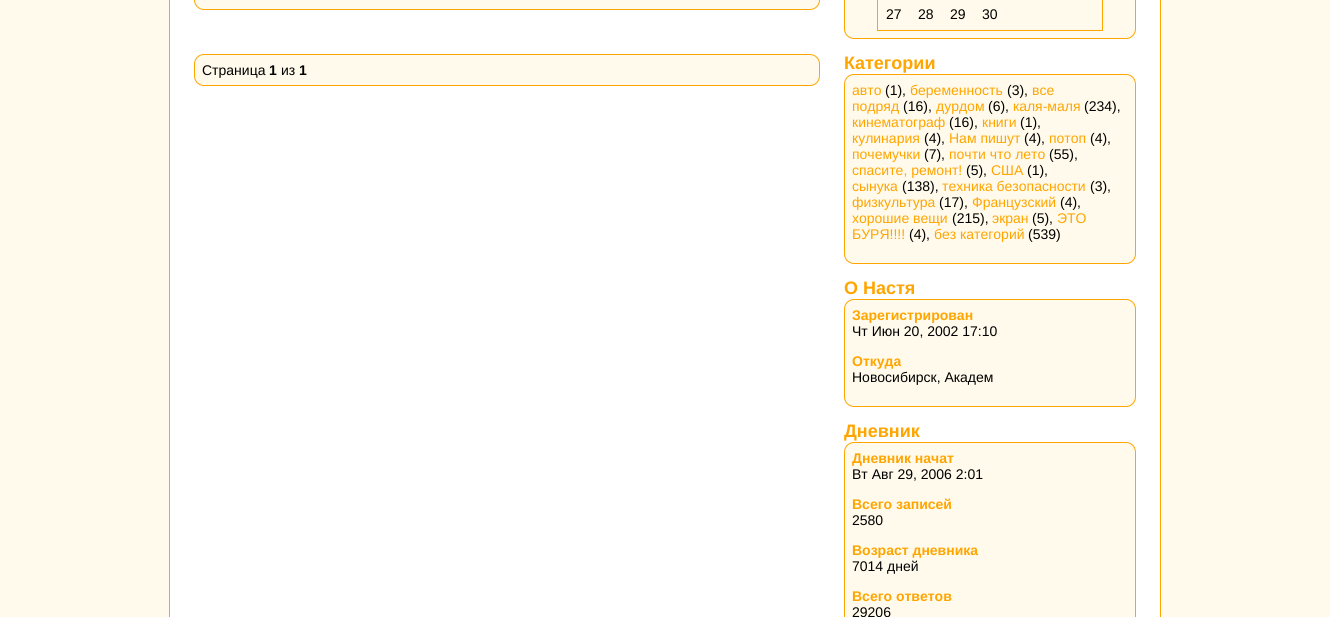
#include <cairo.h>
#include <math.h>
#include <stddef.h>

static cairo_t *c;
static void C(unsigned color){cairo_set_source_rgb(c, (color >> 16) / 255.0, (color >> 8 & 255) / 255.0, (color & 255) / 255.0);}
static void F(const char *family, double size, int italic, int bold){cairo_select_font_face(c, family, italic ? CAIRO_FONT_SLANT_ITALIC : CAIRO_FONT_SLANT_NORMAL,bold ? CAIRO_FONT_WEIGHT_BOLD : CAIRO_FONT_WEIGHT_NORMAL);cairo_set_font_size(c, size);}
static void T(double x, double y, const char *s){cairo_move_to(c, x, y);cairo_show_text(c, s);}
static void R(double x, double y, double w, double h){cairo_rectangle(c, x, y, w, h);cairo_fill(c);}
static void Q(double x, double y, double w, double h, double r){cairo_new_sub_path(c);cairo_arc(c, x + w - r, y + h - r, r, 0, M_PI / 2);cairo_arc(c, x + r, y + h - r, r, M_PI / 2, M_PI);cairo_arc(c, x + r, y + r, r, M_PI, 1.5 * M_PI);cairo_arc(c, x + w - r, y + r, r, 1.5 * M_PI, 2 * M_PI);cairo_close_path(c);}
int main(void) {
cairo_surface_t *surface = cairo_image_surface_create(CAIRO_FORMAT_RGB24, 1330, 617);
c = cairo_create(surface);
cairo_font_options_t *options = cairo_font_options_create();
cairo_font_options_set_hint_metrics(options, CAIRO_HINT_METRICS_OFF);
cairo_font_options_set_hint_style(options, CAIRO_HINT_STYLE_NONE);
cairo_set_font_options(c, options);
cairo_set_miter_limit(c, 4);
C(0xfffaeb);
cairo_paint(c);
C(0xffffff);
cairo_rectangle(c,169.5,-.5,991,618);
cairo_fill_preserve(c);
C(0xffa500);
cairo_set_line_width(c,1);
cairo_stroke(c);
C(0xfffaeb);
Q(194.5,-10.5,625,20,9.5);
cairo_fill_preserve(c);
C(0xffa500);
cairo_stroke(c);
C(0xfffaeb);
Q(194.5,54.5,625,31,9.5);
cairo_fill_preserve(c);
C(0xffa500);
cairo_stroke(c);
F("Liberation Sans",14,0,0);
C(0x000000);
T(202,75,"Страница");
F("Liberation Sans",14,0,1);
T(269,75,"1");
F("Liberation Sans",14,0,0);
T(281,75,"из");
F("Liberation Sans",14,0,1);
T(299,75,"1");
C(0xfffaeb);
Q(844.5,-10.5,291,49,9.5);
cairo_fill_preserve(c);
C(0xffa500);
cairo_stroke(c);
R(1102,0,1,31);
R(877,30,226,1);
R(877,0,1,31);
F("Liberation Sans",14,0,0);
C(0x000000);
T(886,19,"27");
T(918,19,"28");
T(950,19,"29");
T(982,19,"30");
F("Liberation Sans",18,0,1);
C(0xffa500);
T(844,69,"Категории");
C(0xfffaeb);
Q(844.5,74.5,291,189,9.5);
cairo_fill_preserve(c);
C(0xffa500);
cairo_stroke(c);
F("Liberation Sans",14,0,0);
T(852,95,"авто");
C(0x000000);
T(885,95,"(1),");
C(0xffa500);
T(910,95,"беременность");
C(0x000000);
T(1007,95,"(3),");
C(0xffa500);
T(1032,95,"все");
T(852,111,"подряд");
C(0x000000);
T(903,111,"(16),");
C(0xffa500);
T(936,111,"дурдом");
C(0x000000);
T(988,111,"(6),");
C(0xffa500);
T(1013,111,"каля-маля");
C(0x000000);
T(1084,111,"(234),");
C(0xffa500);
T(852,127,"кинематограф");
C(0x000000);
T(949,127,"(16),");
C(0xffa500);
T(982,127,"книги");
C(0x000000);
T(1020,127,"(1),");
C(0xffa500);
T(852,143,"кулинария");
C(0x000000);
T(924,143,"(4),");
C(0xffa500);
T(949,143,"Нам пишут");
C(0x000000);
T(1024,143,"(4),");
C(0xffa500);
T(1049,143,"потоп");
C(0x000000);
T(1090,143,"(4),");
C(0xffa500);
T(852,159,"почемучки");
C(0x000000);
T(924,159,"(7),");
C(0xffa500);
T(949,159,"почти что лето");
C(0x000000);
T(1049,159,"(55),");
C(0xffa500);
T(852,175,"спасите, ремонт!");
C(0x000000);
T(966,175,"(5),");
C(0xffa500);
T(991,175,"США");
C(0x000000);
T(1027,175,"(1),");
C(0xffa500);
T(852,191,"сынука");
C(0x000000);
T(902,191,"(138),");
C(0xffa500);
T(942,191,"техника безопасности");
C(0x000000);
T(1090,191,"(3),");
C(0xffa500);
T(852,207,"физкультура");
C(0x000000);
T(939,207,"(17),");
C(0xffa500);
T(972,207,"Французский");
C(0x000000);
T(1060,207,"(4),");
C(0xffa500);
T(852,223,"хорошие вещи");
C(0x000000);
T(952,223,"(215),");
C(0xffa500);
T(992,223,"экран");
C(0x000000);
T(1032,223,"(5),");
C(0xffa500);
T(1057,223,"ЭТО");
T(852,239,"БУРЯ!!!!");
C(0x000000);
T(909,239,"(4),");
C(0xffa500);
T(934,239,"без категорий");
C(0x000000);
T(1028,239,"(539)");
F("Liberation Sans",18,0,1);
C(0xffa500);
T(844,294,"О Настя");
C(0xfffaeb);
Q(844.5,299.5,291,107,9.5);
cairo_fill_preserve(c);
C(0xffa500);
cairo_stroke(c);
F("Liberation Sans",14,0,1);
T(852,320,"Зарегистрирован");
F("Liberation Sans",14,0,0);
C(0x000000);
T(852,336,"Чт Июн 20, 2002 17:10");
F("Liberation Sans",14,0,1);
C(0xffa500);
T(852,366,"Откуда");
F("Liberation Sans",14,0,0);
C(0x000000);
T(852,382,"Новосибирск, Академ");
F("Liberation Sans",18,0,1);
C(0xffa500);
T(844,437,"Дневник");
C(0xfffaeb);
Q(844.5,442.5,291,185,9.5);
cairo_fill_preserve(c);
C(0xffa500);
cairo_stroke(c);
F("Liberation Sans",14,0,1);
T(852,463,"Дневник начат");
F("Liberation Sans",14,0,0);
C(0x000000);
T(852,479,"Вт Авг 29, 2006 2:01");
F("Liberation Sans",14,0,1);
C(0xffa500);
T(852,509,"Всего записей");
F("Liberation Sans",14,0,0);
C(0x000000);
T(852,525,"2580");
F("Liberation Sans",14,0,1);
C(0xffa500);
T(852,555,"Возраст дневника");
F("Liberation Sans",14,0,0);
C(0x000000);
T(852,571,"7014 дней");
F("Liberation Sans",14,0,1);
C(0xffa500);
T(852,601,"Всего ответов");
F("Liberation Sans",14,0,0);
C(0x000000);
T(852,617,"29206");
cairo_surface_write_to_png(surface, "o.png");
cairo_font_options_destroy(options);
cairo_destroy(c);
cairo_surface_destroy(surface);
return 0;
}
